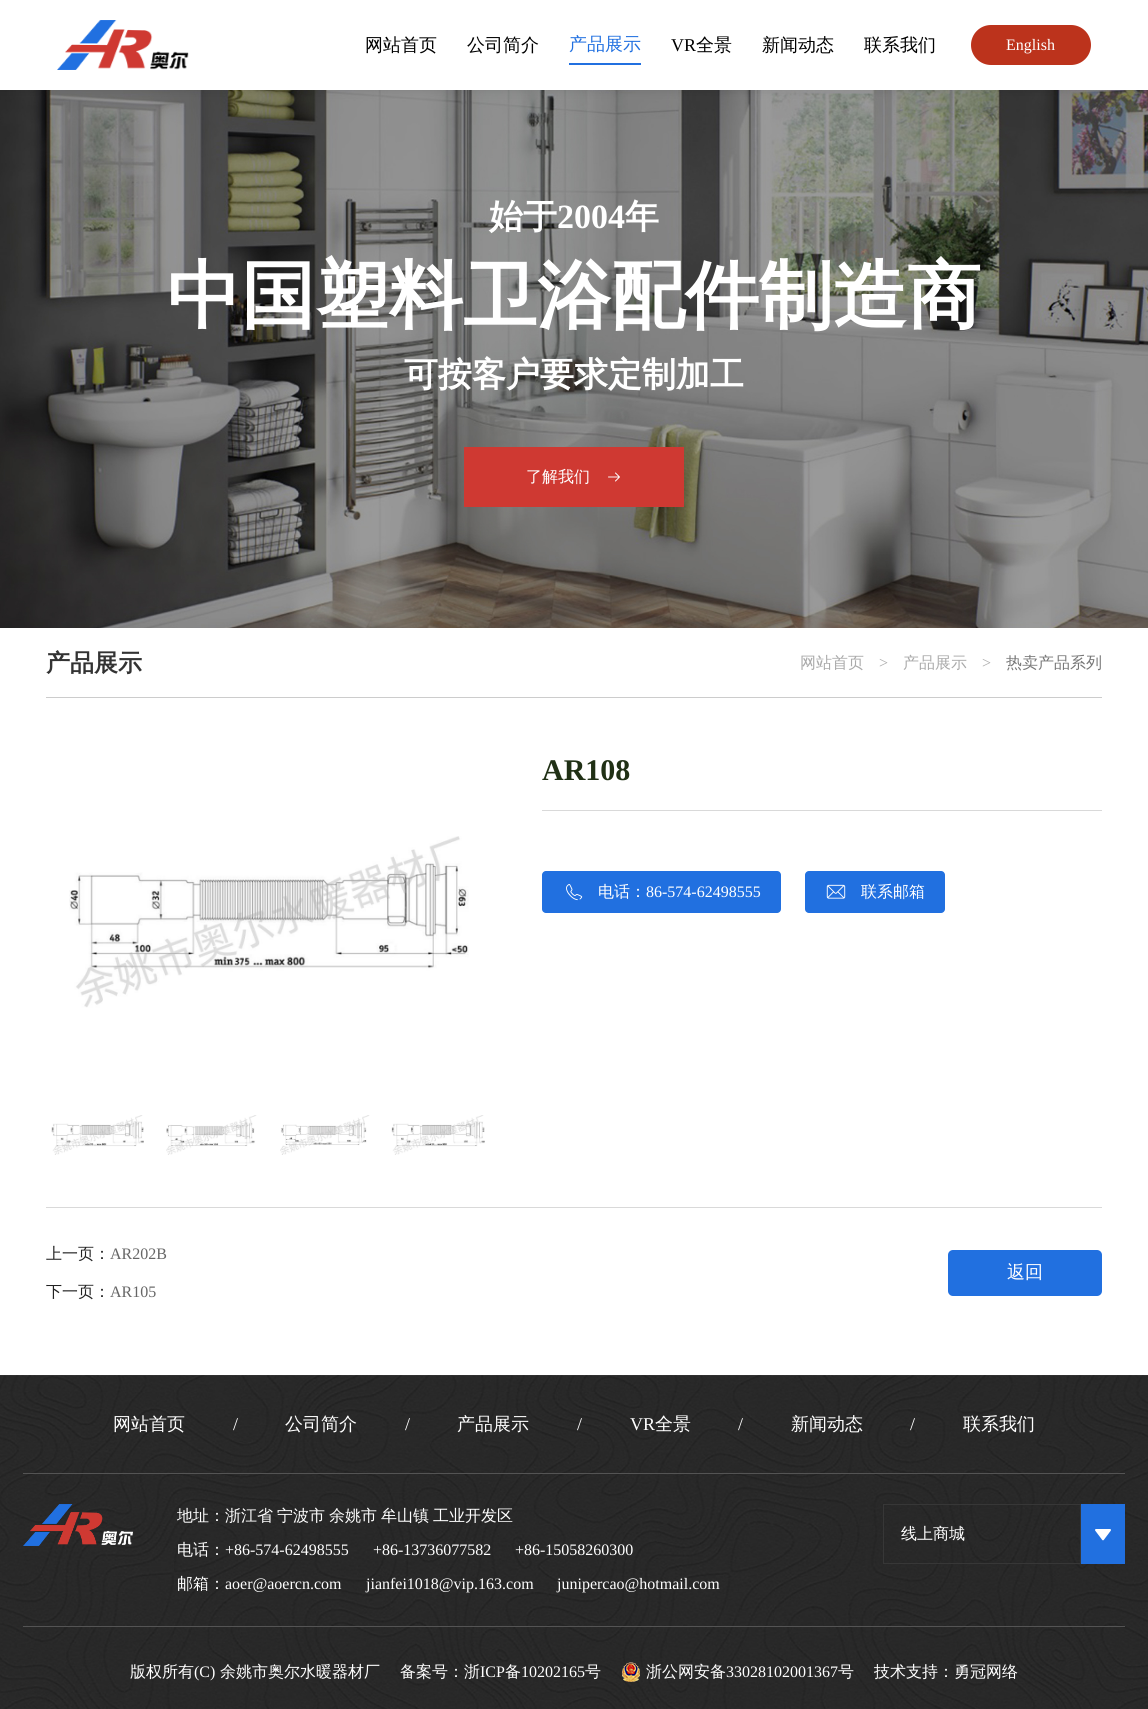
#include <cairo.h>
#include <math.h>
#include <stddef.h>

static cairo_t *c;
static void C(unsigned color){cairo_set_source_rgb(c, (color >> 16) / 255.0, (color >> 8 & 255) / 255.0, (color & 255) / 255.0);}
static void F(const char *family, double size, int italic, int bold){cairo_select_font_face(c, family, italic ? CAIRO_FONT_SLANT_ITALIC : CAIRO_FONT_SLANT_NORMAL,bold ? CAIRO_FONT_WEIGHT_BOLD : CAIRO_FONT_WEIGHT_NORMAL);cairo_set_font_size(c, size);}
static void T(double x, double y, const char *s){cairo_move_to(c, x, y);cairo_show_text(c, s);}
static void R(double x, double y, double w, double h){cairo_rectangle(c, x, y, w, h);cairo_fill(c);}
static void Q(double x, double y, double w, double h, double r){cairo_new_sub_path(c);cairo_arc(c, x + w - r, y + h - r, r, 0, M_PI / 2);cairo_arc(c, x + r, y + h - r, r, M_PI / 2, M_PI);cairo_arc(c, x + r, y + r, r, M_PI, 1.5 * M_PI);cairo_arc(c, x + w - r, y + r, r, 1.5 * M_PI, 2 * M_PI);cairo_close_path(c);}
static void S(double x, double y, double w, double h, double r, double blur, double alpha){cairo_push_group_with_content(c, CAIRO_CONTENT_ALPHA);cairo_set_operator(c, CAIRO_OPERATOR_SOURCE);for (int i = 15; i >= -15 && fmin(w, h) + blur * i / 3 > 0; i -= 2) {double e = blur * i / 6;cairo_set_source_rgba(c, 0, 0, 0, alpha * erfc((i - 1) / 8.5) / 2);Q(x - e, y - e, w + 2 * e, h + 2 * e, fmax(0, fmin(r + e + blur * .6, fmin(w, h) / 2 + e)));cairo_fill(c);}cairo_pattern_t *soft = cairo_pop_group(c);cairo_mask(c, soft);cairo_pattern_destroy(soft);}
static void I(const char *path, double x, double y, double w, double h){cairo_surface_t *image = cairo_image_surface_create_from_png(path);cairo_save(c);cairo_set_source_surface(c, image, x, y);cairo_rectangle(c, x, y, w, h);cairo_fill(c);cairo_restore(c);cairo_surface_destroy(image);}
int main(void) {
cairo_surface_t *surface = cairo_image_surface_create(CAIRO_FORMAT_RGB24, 1148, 1709);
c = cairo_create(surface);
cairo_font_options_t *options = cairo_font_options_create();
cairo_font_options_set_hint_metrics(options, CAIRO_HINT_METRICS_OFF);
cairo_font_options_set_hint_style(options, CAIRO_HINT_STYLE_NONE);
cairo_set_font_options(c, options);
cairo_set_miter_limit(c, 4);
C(0xffffff);
cairo_paint(c);
I("2.png",0,90,1148,538);
C(0x000000);
S(0,0,1148,90,0,5,.1);
C(0xffffff);
R(0,0,1148,90);
I("1.png",57,20,132,50);
F("WenQuanYi Zen Hei Medium",18,0,0);
C(0x000000);
T(365,51,"网站首页");
T(467,51,"公司简介");
C(0x2170e0);
R(569,63,72,2);
T(569,50,"产品展示");
F("Liberation Serif",18,0,0);
C(0x000000);
T(671,51,"VR");
F("WenQuanYi Zen Hei Medium",18,0,0);
T(696,51,"全景");
T(762,51,"新闻动态");
T(864,51,"联系我们");
C(0xbc331c);
Q(971,25,120,40,20);
cairo_fill(c);
F("Liberation Serif",16,0,0);
C(0xffffff);
T(1006,50,"English");
F("WenQuanYi Zen Hei",34,0,1);
T(489,228,"始于");
F("Liberation Serif",34,0,1);
T(557,228,"2004");
F("WenQuanYi Zen Hei",34,0,1);
T(625,228,"年");
F("WenQuanYi Zen Hei",74,0,1);
T(167,321,"中国塑料卫浴配件制造商");
F("WenQuanYi Zen Hei",34,0,1);
T(404,386,"可按客户要求定制加工");
C(0xcf3932);
R(464,447,220,60);
F("WenQuanYi Zen Hei Medium",16,0,0);
C(0xffffff);
T(526,482,"了解我们");
I("3.png",608,472,12,10);
C(0xcccccc);
R(46,697,1056,1);
F("WenQuanYi Zen Hei",24,0,1);
C(0x333333);
T(46,671,"产品展示");
F("WenQuanYi Zen Hei Medium",16,0,0);
C(0xaaaaaa);
T(800,668,"网站首页");
F("Liberation Serif",16,0,0);
T(879,668,">");
F("WenQuanYi Zen Hei Medium",16,0,0);
T(903,668,"产品展示");
F("Liberation Serif",16,0,0);
T(982,668,">");
F("WenQuanYi Zen Hei Medium",16,0,0);
C(0x777777);
T(1006,668,"热卖产品系列");
I("4.png",69,836,400,172);
I("5.png",51,1115,93,40);
I("6.png",166,1115,91,40);
I("7.png",280,1115,90,40);
I("8.png",391,1115,94,40);
C(0xd9d9d9);
R(542,810,560,1);
F("Liberation Serif",30,0,1);
C(0x203015);
T(542,780,"AR108");
C(0x2170e0);
Q(542,871,239,42,4);
cairo_fill(c);
I("9.png",566,884,17,17);
F("WenQuanYi Zen Hei Medium",16,0,0);
C(0xffffff);
T(598,897,"电话：");
F("Liberation Serif",16,0,0);
T(646,897,"86-574-62498555");
C(0x2170e0);
Q(805,871,140,42,4);
cairo_fill(c);
I("10.png",826,884,20,15);
F("WenQuanYi Zen Hei Medium",16,0,0);
C(0xffffff);
T(861,897,"联系邮箱");
C(0xd9d9d9);
R(46,1207,1056,1);
C(0x222222);
T(46,1259,"上一页：");
F("Liberation Serif",16,0,0);
C(0x666666);
T(110,1259,"AR202B");
F("WenQuanYi Zen Hei Medium",16,0,0);
C(0x222222);
T(46,1297,"下一页：");
F("Liberation Serif",16,0,0);
C(0x666666);
T(110,1297,"AR105");
C(0x2170e0);
Q(948,1250,154,46,5);
cairo_fill(c);
F("WenQuanYi Zen Hei Medium",18,0,0);
C(0xffffff);
T(1007,1278,"返回");
I("11.png",0,1375,1148,334);
C(0x545454);
R(23,1473,1102,1);
C(0xffffff);
T(113,1430,"网站首页");
F("Liberation Serif",18,0,0);
T(233,1430,"/");
F("WenQuanYi Zen Hei Medium",18,0,0);
T(285,1430,"公司简介");
F("Liberation Serif",18,0,0);
T(405,1430,"/");
F("WenQuanYi Zen Hei Medium",18,0,0);
T(457,1430,"产品展示");
F("Liberation Serif",18,0,0);
T(577,1430,"/");
T(630,1430,"VR");
F("WenQuanYi Zen Hei Medium",18,0,0);
T(655,1430,"全景");
F("Liberation Serif",18,0,0);
T(738,1430,"/");
F("WenQuanYi Zen Hei Medium",18,0,0);
T(791,1430,"新闻动态");
F("Liberation Serif",18,0,0);
T(910,1430,"/");
F("WenQuanYi Zen Hei Medium",18,0,0);
T(963,1430,"联系我们");
C(0x545454);
R(23,1626,1102,1);
I("12.png",23,1504,110,42);
F("WenQuanYi Zen Hei Medium",16,0,0);
C(0xffffff);
T(177,1521,"地址：浙江省");
T(277,1521,"宁波市");
T(329,1521,"余姚市");
T(381,1521,"牟山镇");
T(433,1521,"工业开发区");
T(177,1555,"电话：");
F("Liberation Serif",16,0,0);
T(225,1555,"+86-574-62498555");
T(373,1555,"+86-13736077582");
T(515,1555,"+86-15058260300");
F("WenQuanYi Zen Hei Medium",16,0,0);
T(177,1589,"邮箱：");
F("Liberation Serif",16,0,0);
T(225,1589,"aoer@aoercn.com");
T(366,1589,"jianfei1018@vip.163.com");
T(557,1589,"junipercao@hotmail.com");
cairo_rectangle(c,883.5,1504.5,197,59);
C(0x373737);
cairo_set_line_width(c,1);
cairo_stroke(c);
F("WenQuanYi Zen Hei Medium",16,0,0);
C(0xffffff);
T(901,1539,"线上商城");
C(0x2170e0);
R(1081,1504,44,60);
I("13.png",1095,1529,16,12);
C(0xffffff);
T(130,1677,"版权所有");
F("Liberation Serif",16,0,0);
T(194,1677,"(C)");
F("WenQuanYi Zen Hei Medium",16,0,0);
T(220,1677,"余姚市奥尔水暖器材厂");
T(400,1677,"备案号：浙");
F("Liberation Serif",16,0,0);
T(480,1677,"ICP");
F("WenQuanYi Zen Hei Medium",16,0,0);
T(505,1677,"备");
F("Liberation Serif",16,0,0);
T(521,1677,"10202165");
F("WenQuanYi Zen Hei Medium",16,0,0);
T(585,1677,"号");
I("14.png",622,1662,18,20);
T(646,1677,"浙公网安备");
F("Liberation Serif",16,0,0);
T(726,1677,"33028102001367");
F("WenQuanYi Zen Hei Medium",16,0,0);
T(838,1677,"号");
T(874,1677,"技术支持：勇冠网络");
cairo_surface_write_to_png(surface, "o.png");
cairo_font_options_destroy(options);
cairo_destroy(c);
cairo_surface_destroy(surface);
return 0;
}
